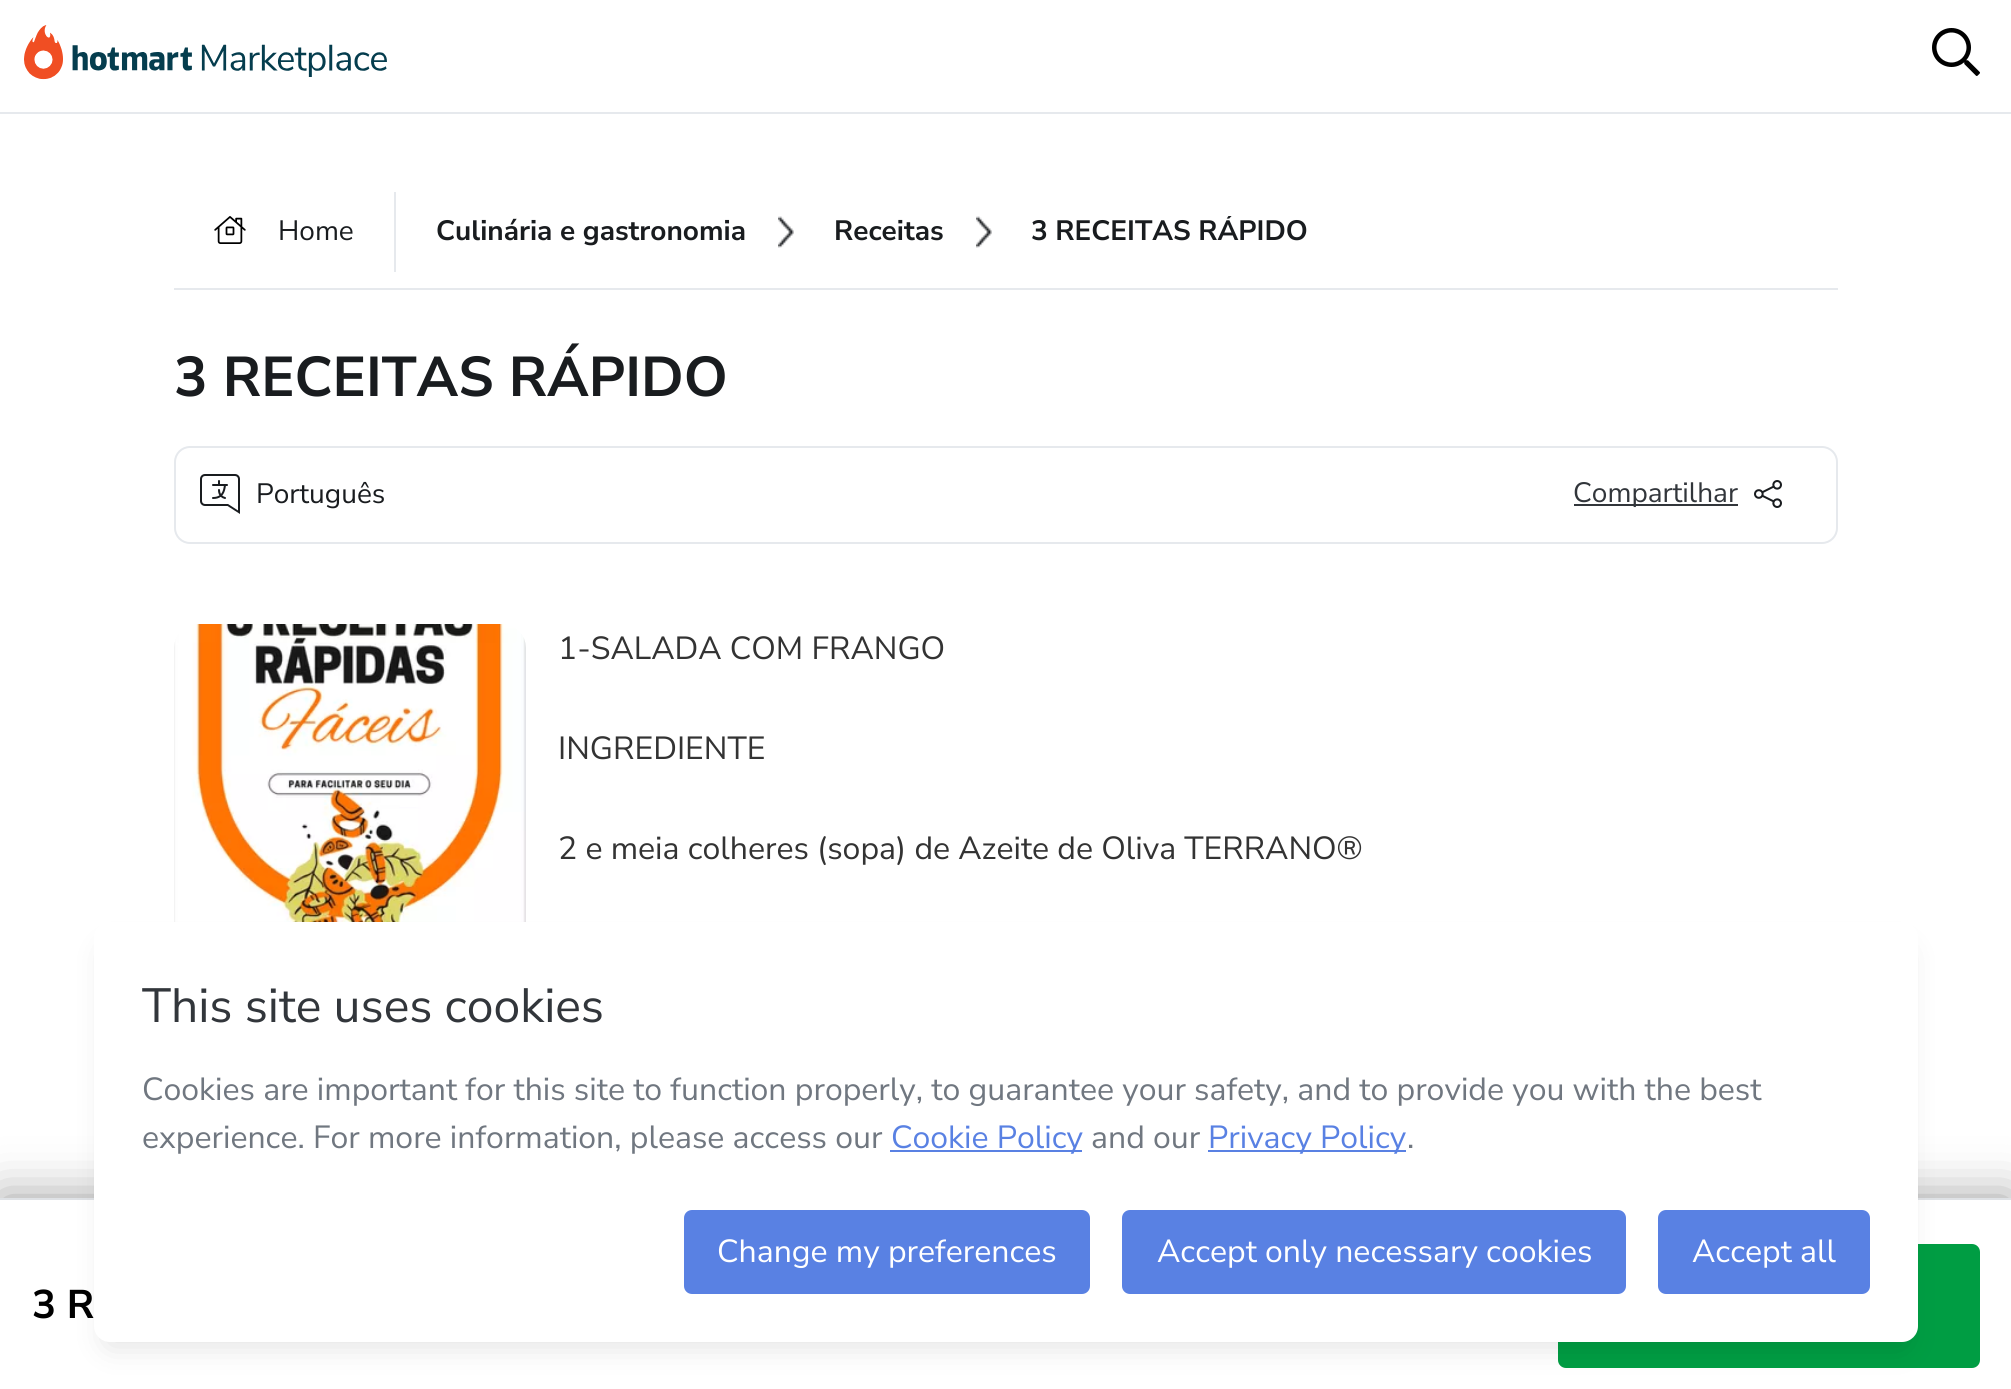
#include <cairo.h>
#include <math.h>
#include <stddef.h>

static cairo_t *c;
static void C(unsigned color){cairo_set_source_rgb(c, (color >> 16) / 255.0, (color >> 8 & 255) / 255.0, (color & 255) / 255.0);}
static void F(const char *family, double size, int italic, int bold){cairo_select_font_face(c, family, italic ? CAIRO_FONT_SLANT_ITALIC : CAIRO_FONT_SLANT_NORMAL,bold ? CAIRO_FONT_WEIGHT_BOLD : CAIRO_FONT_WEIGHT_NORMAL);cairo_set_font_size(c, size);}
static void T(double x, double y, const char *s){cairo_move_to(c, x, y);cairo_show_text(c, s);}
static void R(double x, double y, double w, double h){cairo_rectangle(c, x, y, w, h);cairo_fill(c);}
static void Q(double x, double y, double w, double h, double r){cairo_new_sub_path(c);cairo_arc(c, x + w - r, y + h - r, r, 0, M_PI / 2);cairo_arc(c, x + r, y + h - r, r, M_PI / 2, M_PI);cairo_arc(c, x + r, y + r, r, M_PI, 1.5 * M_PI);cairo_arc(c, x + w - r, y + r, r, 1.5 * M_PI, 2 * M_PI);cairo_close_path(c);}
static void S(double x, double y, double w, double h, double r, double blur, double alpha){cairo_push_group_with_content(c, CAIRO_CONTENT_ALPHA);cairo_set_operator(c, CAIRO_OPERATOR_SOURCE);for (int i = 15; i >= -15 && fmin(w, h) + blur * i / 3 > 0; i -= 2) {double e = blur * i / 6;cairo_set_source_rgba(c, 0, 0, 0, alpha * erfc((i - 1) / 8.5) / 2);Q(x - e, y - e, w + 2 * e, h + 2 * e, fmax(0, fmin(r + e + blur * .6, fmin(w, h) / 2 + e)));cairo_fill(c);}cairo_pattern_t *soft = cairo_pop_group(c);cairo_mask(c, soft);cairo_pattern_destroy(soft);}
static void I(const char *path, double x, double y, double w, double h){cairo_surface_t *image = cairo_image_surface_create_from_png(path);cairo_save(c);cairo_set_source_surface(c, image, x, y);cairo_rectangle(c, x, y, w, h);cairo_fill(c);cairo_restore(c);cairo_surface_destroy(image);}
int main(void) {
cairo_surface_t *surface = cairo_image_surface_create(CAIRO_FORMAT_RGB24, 2011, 1389);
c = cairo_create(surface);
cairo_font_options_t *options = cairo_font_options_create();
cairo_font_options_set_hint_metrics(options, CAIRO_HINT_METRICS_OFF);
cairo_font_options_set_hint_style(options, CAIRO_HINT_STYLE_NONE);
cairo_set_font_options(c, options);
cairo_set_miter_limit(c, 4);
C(0xffffff);
cairo_paint(c);
C(0xe6e9ed);
R(0,112,2011,2);
I("1.png",24,25,363,55);
I("2.png",1932,28,48,48);
R(174,288,1664,2);
R(394,192,2,80);
I("3.png",214,216,32,28);
F("Nunito Sans",28,0,0);
C(0x191c1f);
T(278,240,"Home");
F("Nunito Sans",28,0,1);
T(436,240,"Culinária e gastronomia");
I("4.png",778,216,16,32);
T(834,240,"Receitas");
I("4.png",976,216,16,32);
cairo_save(c);
cairo_rectangle(c,1032,216,276,32);
cairo_clip(c);
T(1031,240,"3 RECEITAS RÁPIDO");
cairo_restore(c);
F("Nunito Sans",56,0,1);
T(174,396,"3 RECEITAS RÁPIDO");
Q(175,447,1662,96,15);
C(0xe6e9ed);
cairo_stroke(c);
I("5.png",200,474,40,40);
F("Nunito Sans",28,0,0);
C(0x191c1f);
T(256,503,"Português");
C(0x32363b);
R(1574,504,164,2);
T(1573,502,"Compartilhar");
I("6.png",1754,480,28,28);
I("7.png",174,624,352,298);
F("Nunito Sans",32,0,0);
C(0x333333);
T(558,659,"1-SALADA COM FRANGO");
T(558,759,"INGREDIENTE");
T(558,859,"2 e meia colheres (sopa) de Azeite de Oliva TERRANO®");
C(0x000000);
S(0,1198,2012,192,0,25,.4);
C(0xffffff);
R(0,1200,2011,189);
C(0xdfe2e6);
R(0,1198,2011,2);
F("Nunito Sans",40,0,1);
C(0x000000);
T(32,1318,"3 R");
C(0x009d43);
Q(1559,1245,420,122,7);
cairo_fill_preserve(c);
cairo_stroke(c);
C(0x000000);
S(106,950,1800,396,4,16,.12);
C(0xffffff);
Q(94,922,1824,420,16);
cairo_fill(c);
F("Nunito Sans",48,0,0);
C(0x32363b);
T(142,1022,"This site uses cookies");
F("Nunito Sans",32,0,0);
C(0x707780);
T(142,1100,"Cookies are important for this site to function properly, to guarantee your safety, and to provide you with the best");
T(142,1148,"experience. For more information, please access our");
C(0x5981e3);
R(890,1150,192,2);
T(891,1148,"Cookie Policy");
C(0x707780);
T(1091,1148,"and our");
C(0x5981e3);
R(1208,1150,198,2);
T(1208,1148,"Privacy Policy");
C(0x707780);
T(1407,1148,".");
C(0x5981e3);
Q(685,1211,404,82,7);
cairo_fill_preserve(c);
cairo_stroke(c);
C(0xffffff);
T(717,1262,"Change my preferences");
C(0x5981e3);
Q(1123,1211,502,82,7);
cairo_fill_preserve(c);
cairo_stroke(c);
C(0xffffff);
T(1157,1262,"Accept only necessary cookies");
C(0x5981e3);
Q(1659,1211,210,82,7);
cairo_fill_preserve(c);
cairo_stroke(c);
C(0xffffff);
T(1692,1262,"Accept all");
cairo_surface_write_to_png(surface, "o.png");
cairo_font_options_destroy(options);
cairo_destroy(c);
cairo_surface_destroy(surface);
return 0;
}
